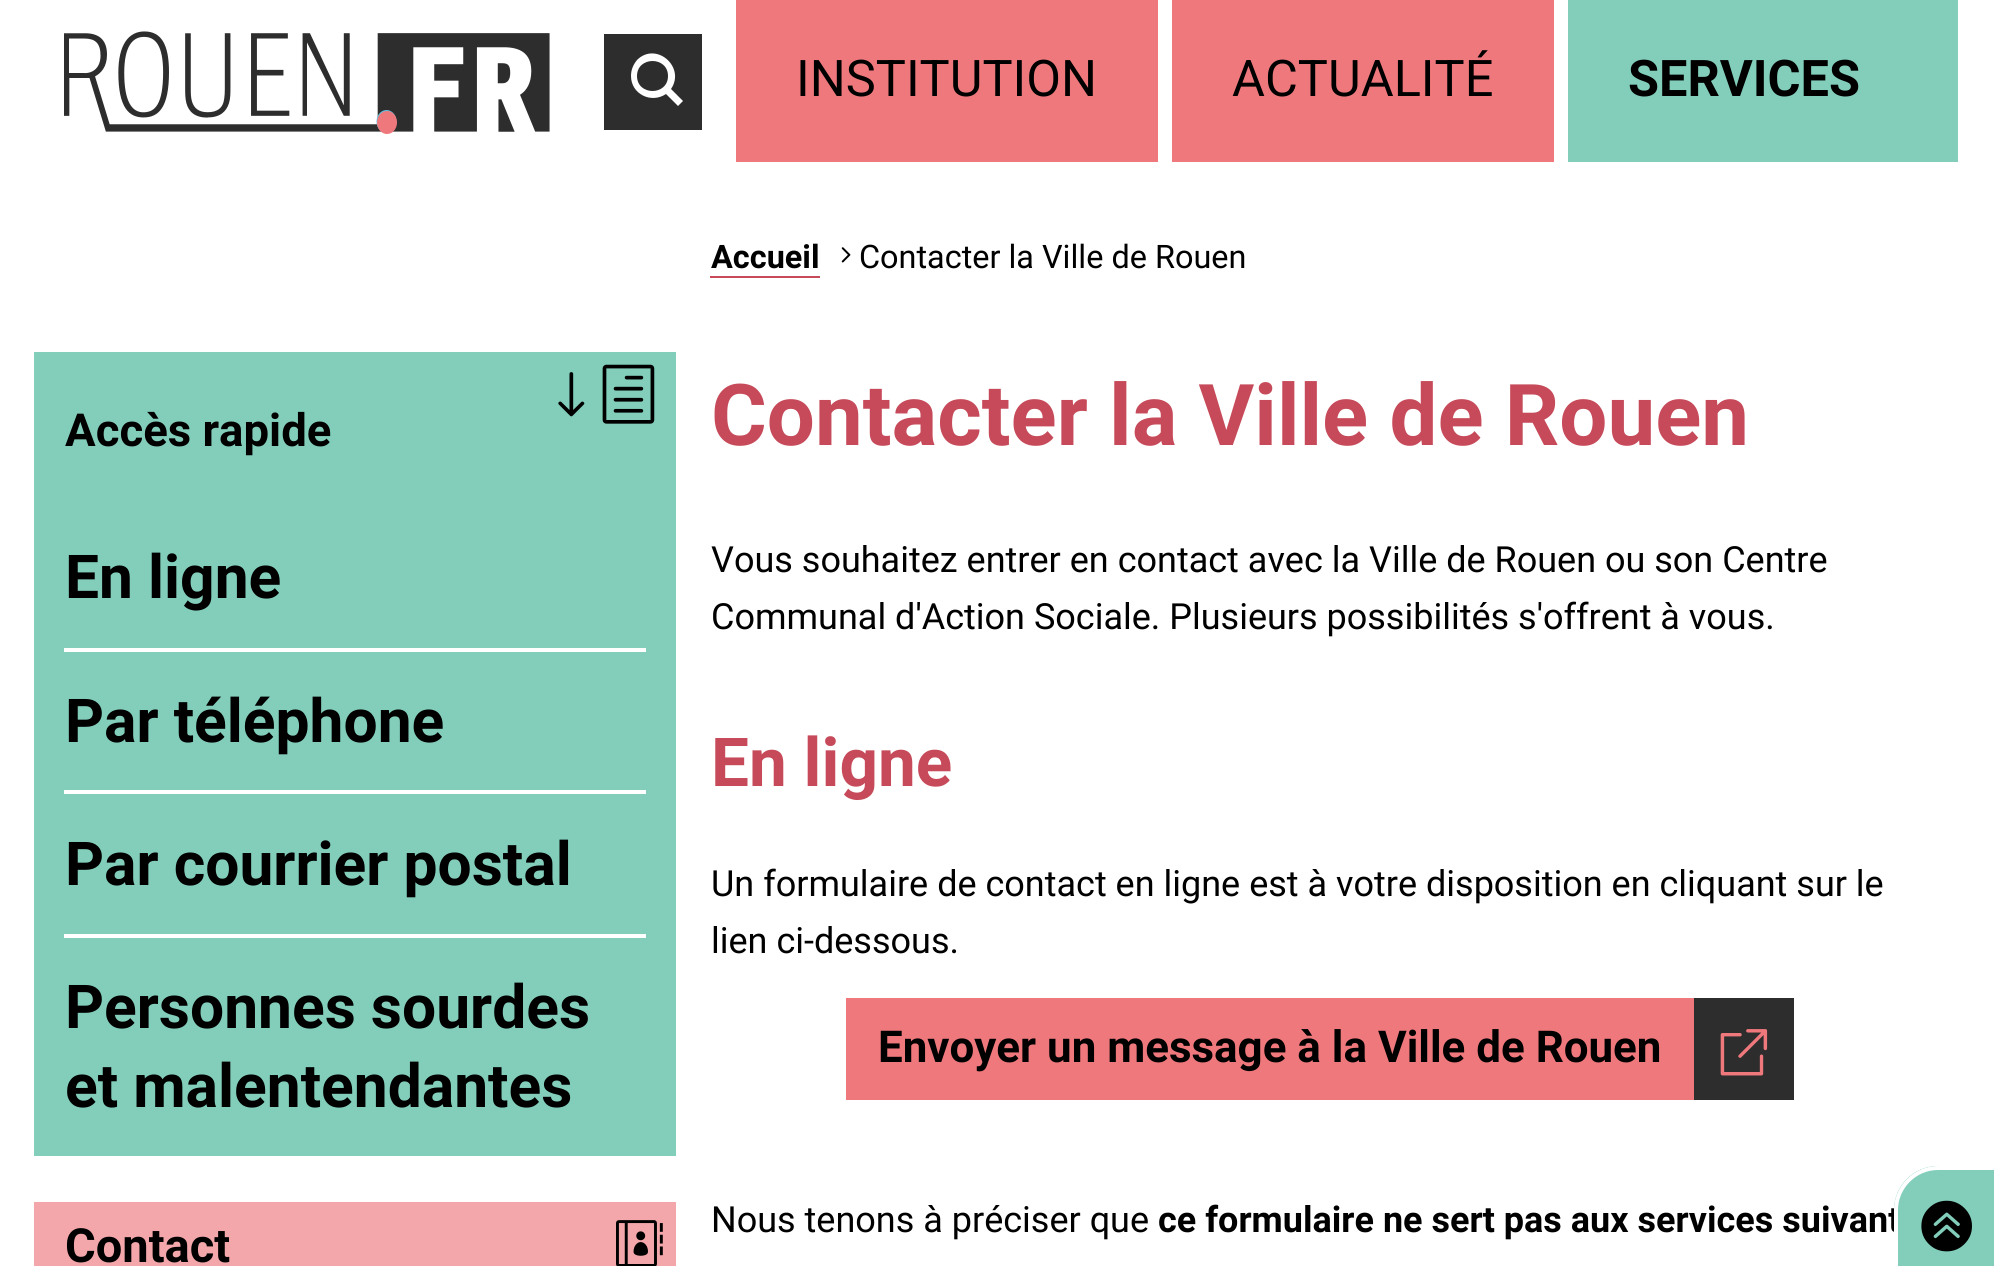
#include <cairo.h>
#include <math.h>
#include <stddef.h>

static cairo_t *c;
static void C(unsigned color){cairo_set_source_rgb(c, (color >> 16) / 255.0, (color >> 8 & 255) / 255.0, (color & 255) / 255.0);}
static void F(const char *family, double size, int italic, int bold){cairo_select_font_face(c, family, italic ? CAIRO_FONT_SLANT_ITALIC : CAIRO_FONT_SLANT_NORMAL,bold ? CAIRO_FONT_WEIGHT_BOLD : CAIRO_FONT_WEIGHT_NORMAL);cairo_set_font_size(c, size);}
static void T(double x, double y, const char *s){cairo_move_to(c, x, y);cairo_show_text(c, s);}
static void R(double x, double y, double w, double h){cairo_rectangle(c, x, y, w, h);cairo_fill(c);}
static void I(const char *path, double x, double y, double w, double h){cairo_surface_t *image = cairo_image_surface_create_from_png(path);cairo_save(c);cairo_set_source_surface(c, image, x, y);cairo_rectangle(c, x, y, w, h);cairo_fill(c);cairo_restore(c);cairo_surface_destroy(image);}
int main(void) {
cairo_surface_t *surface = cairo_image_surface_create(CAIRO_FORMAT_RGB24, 1994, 1266);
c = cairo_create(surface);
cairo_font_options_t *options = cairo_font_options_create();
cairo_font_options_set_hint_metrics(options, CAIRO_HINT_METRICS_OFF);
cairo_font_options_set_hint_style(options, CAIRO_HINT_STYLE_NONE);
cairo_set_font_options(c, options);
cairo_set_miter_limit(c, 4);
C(0xffffff);
cairo_paint(c);
I("1.png",64,31,486,102);
C(0xee787c);
cairo_new_path(c);
cairo_move_to(c,387,111);
cairo_curve_to(c,392.5,111,397,116,397,122.5);
cairo_curve_to(c,397,129,392.5,134,387,134);
cairo_curve_to(c,381.5,134,377,129,377,122.5);
cairo_curve_to(c,377,116,381.5,111,387,111);
cairo_close_path(c);
cairo_fill(c);
C(0x2d2d2d);
R(604,34,98,96);
C(0xffffff);
cairo_new_path(c);
cairo_move_to(c,631,76);
cairo_curve_to(c,631,70,633,65,637,60);
cairo_curve_to(c,656,41,686,67,671,89);
cairo_line_to(c,683,101);
cairo_line_to(c,678,106);
cairo_line_to(c,666,94);
cairo_curve_to(c,651,104,631,94,631,76);
cairo_close_path(c);
cairo_move_to(c,637,76);
cairo_curve_to(c,637,96,668,96,668,76);
cairo_curve_to(c,668,56,637,56,637,76);
cairo_close_path(c);
cairo_fill(c);
C(0xee787c);
R(736,0,422,162);
F("Roboto",50.5,0,0);
C(0x000000);
T(796,96,"INSTITUTION");
C(0xee787c);
R(1172,0,382,162);
C(0x000000);
T(1232,96,"ACTUALITÉ");
C(0x82cebb);
R(1568,0,390,162);
F("Roboto",50.5,0,1);
C(0x000000);
T(1628,96,"SERVICES");
F("Roboto",32.4,0,1);
T(711,268,"Accueil");
C(0xc64a59);
R(710,276,110,2);
I("2.png",841,247,10,16);
F("Roboto",32.4,0,0);
C(0x000000);
T(859,268,"Contacter la Ville de Rouen");
C(0x82cebb);
R(34,352,642,804);
I("3.png",558,364,97,60);
F("Roboto",45.5,0,1);
C(0x000000);
T(65,446,"Accès rapide");
C(0xffffff);
R(64,648,582,4);
F("Roboto",60.5,0,1);
C(0x000000);
T(65,598,"En ligne");
C(0xffffff);
R(64,790,582,4);
C(0x000000);
T(65,742,"Par téléphone");
C(0xffffff);
R(64,934,582,4);
C(0x000000);
T(65,885,"Par courrier postal");
T(65,1028,"Personnes sourdes");
T(65,1107,"et malentendantes");
C(0xf4a7aa);
R(34,1202,642,64);
F("Roboto",47,0,1);
C(0x000000);
T(65,1262,"Contact");
I("4.png",616,1220,47,46);
F("Roboto",85.25,0,1);
C(0xc64a59);
T(711,445,"Contacter la Ville de Rouen");
F("Roboto",36,0,0);
C(0x000000);
T(711,572,"Vous souhaitez entrer en contact avec la Ville de Rouen ou son Centre");
T(711,629,"Communal d'Action Sociale. Plusieurs possibilités s'offrent à vous.");
F("Roboto",67.5,0,1);
C(0xc64a59);
T(711,786,"En ligne");
F("Roboto",36,0,0);
C(0x000000);
T(711,896,"Un formulaire de contact en ligne est à votre disposition en cliquant sur le");
T(711,953,"lien ci-dessous.");
C(0xee787c);
R(846,998,848,102);
C(0x2d2d2d);
R(1694,998,100,102);
F("Roboto",43.9,0,1);
C(0x000000);
T(878,1062,"Envoyer un message à la Ville de Rouen");
I("5.png",1720,1029,48,47);
F("Roboto",36,0,0);
T(711,1232,"Nous tenons à préciser que");
F("Roboto",36,0,1);
T(1158,1232,"ce formulaire ne sert pas aux services suivant");
C(0x82cebb);
cairo_new_path(c);
cairo_move_to(c,1938,1166);
cairo_line_to(c,1994,1166);
cairo_line_to(c,1994,1266);
cairo_line_to(c,1894,1266);
cairo_line_to(c,1894,1210);
cairo_curve_to(c,1894,1185.5,1913.5,1166,1938,1166);
cairo_close_path(c);
cairo_fill(c);
cairo_new_path(c);
cairo_move_to(c,1938,1168);
cairo_line_to(c,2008,1168);
cairo_line_to(c,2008,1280);
cairo_line_to(c,1896,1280);
cairo_line_to(c,1896,1210);
cairo_curve_to(c,1896,1187,1915,1168,1938,1168);
cairo_close_path(c);
C(0xffffff);
cairo_set_line_width(c,4);
cairo_stroke(c);
I("6.png",1921,1200,51,52);
cairo_surface_write_to_png(surface, "o.png");
cairo_font_options_destroy(options);
cairo_destroy(c);
cairo_surface_destroy(surface);
return 0;
}
